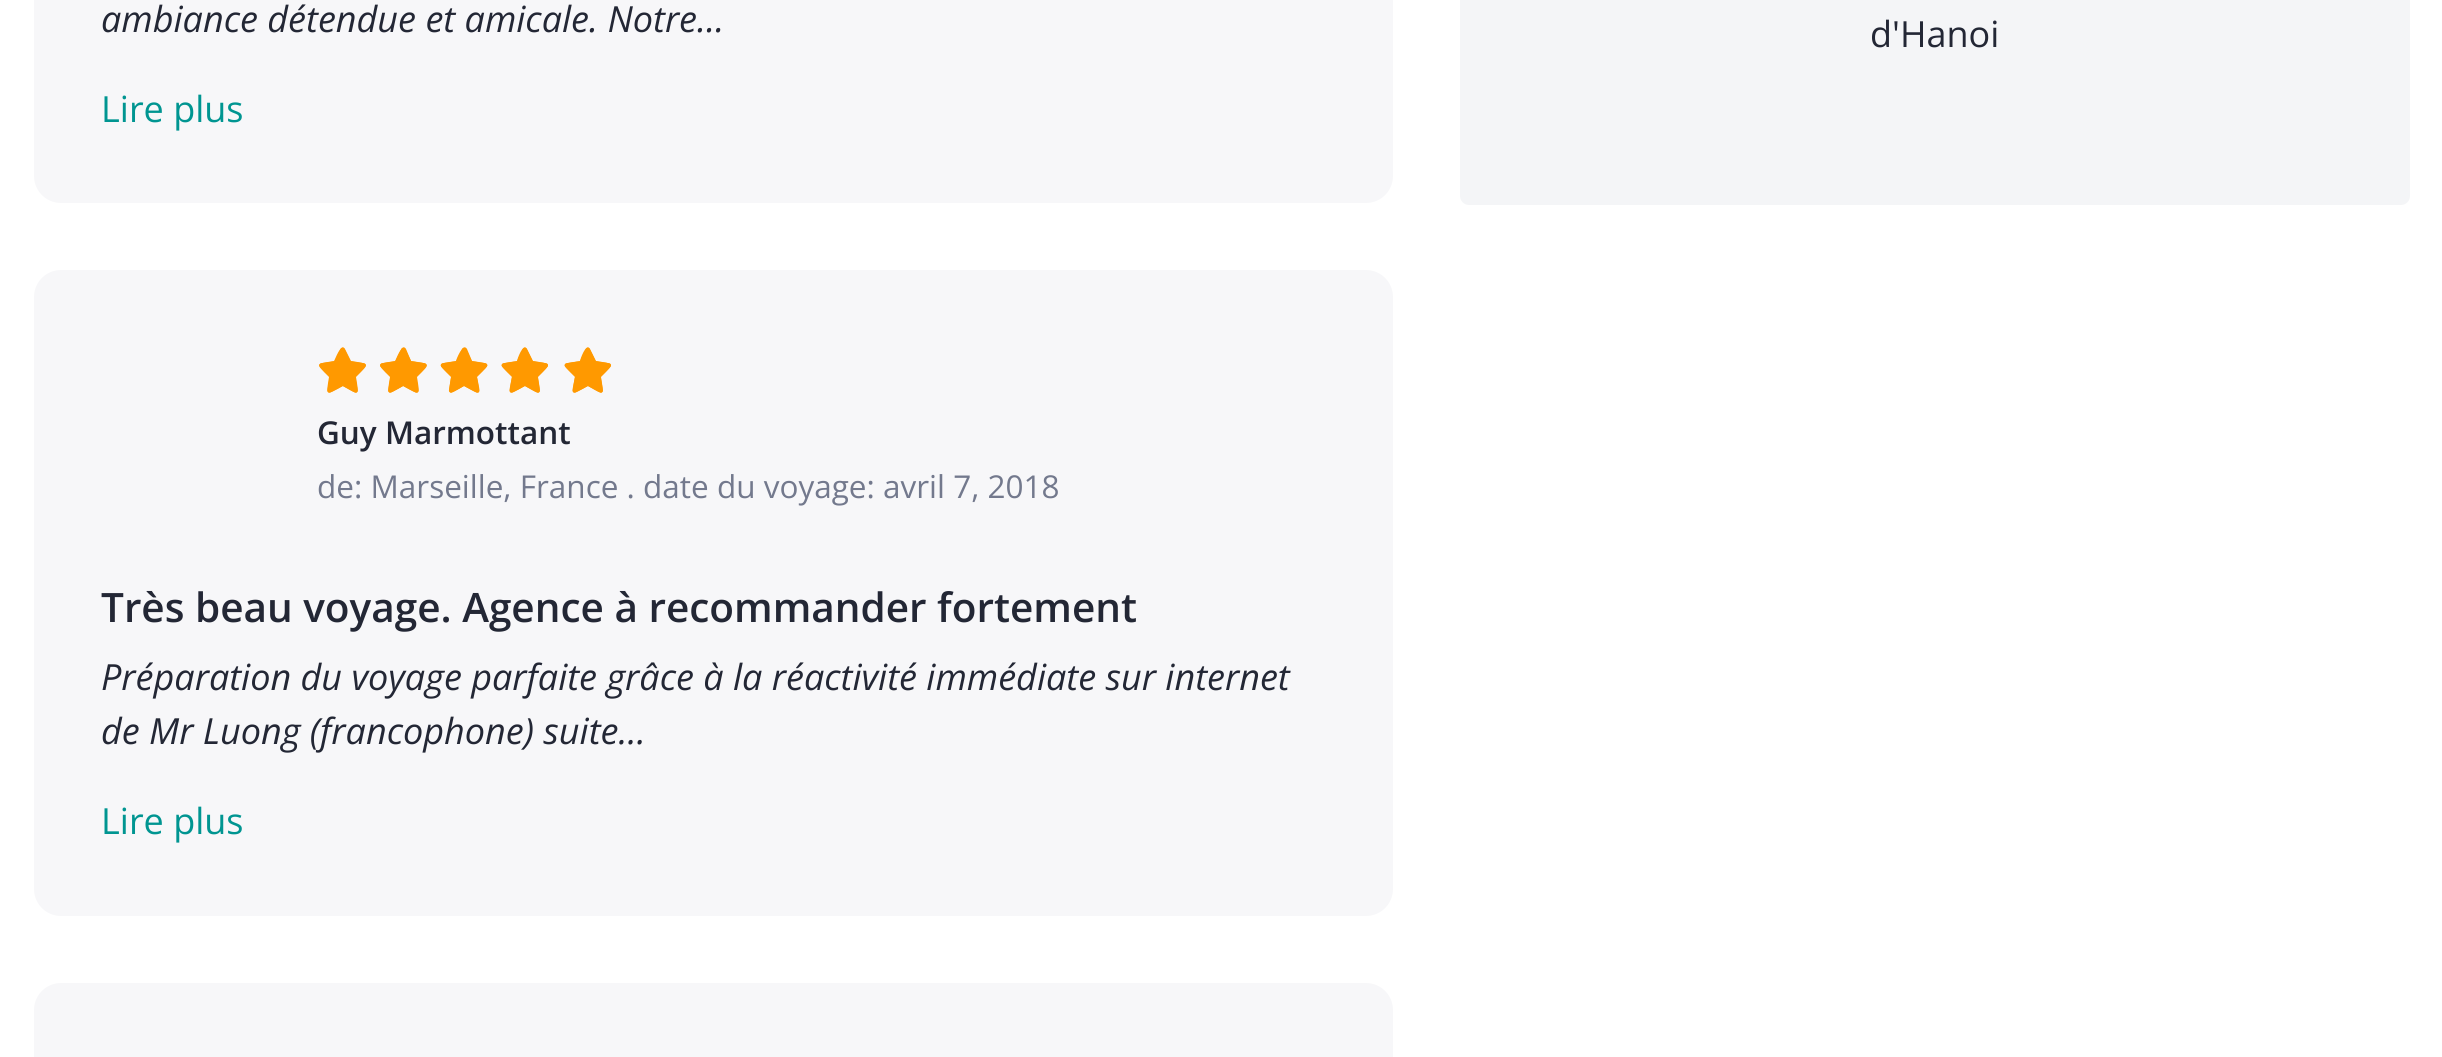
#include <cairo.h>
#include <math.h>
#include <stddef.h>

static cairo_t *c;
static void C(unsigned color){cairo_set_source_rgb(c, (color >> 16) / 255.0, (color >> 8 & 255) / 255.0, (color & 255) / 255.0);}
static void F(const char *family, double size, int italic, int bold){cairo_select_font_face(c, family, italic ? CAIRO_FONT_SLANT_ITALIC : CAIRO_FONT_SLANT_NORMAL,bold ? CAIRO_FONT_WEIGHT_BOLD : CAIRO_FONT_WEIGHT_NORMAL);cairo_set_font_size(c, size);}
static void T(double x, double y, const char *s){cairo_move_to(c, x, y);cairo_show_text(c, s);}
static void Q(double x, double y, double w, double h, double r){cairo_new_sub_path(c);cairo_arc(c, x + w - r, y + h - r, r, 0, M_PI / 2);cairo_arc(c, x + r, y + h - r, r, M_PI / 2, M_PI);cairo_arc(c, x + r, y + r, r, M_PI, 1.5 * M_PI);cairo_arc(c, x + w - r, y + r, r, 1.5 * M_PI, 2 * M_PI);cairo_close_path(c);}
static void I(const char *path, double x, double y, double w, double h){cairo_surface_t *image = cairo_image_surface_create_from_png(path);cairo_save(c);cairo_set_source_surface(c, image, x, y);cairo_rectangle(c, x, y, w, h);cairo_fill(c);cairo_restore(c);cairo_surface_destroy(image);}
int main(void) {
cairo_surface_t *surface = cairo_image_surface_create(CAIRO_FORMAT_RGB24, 2442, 1057);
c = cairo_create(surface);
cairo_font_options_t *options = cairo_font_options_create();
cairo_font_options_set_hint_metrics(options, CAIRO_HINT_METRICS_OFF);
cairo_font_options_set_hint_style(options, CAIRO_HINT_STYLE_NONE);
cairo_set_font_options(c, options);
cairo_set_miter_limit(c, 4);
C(0xffffff);
cairo_paint(c);
C(0xf7f7f9);
Q(34,-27,1359,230,27);
cairo_fill(c);
F("Open Sans",36,1,0);
C(0x232735);
T(101,32,"ambiance détendue et amicale. Notre…");
F("Open Sans",36,0,0);
C(0x009591);
T(101,122,"Lire plus");
C(0xf7f7f9);
Q(34,270,1359,646,27);
cairo_fill(c);
I("1.png",319,347,47,46);
I("2.png",380,347,47,46);
I("3.png",440,347,48,46);
I("4.png",501,347,47,46);
I("4.png",564,347,47,46);
C(0xff9900);
cairo_new_path(c);
cairo_move_to(c,345,349);
cairo_curve_to(c,341,342,335,360,334,361);
cairo_curve_to(c,315,364,315,363,329,377);
cairo_curve_to(c,326,396,325,396,343,386);
cairo_curve_to(c,360,396,359,396,356,377);
cairo_curve_to(c,370,363,370,364,351,361);
cairo_close_path(c);
cairo_fill(c);
cairo_new_path(c);
cairo_move_to(c,406,349);
cairo_curve_to(c,402,342,396,360,395,361);
cairo_curve_to(c,376,364,376,363,390,377);
cairo_curve_to(c,387,396,386,396,403,386);
cairo_curve_to(c,421,396,420,396,417,377);
cairo_curve_to(c,431,363,431,364,411,361);
cairo_close_path(c);
cairo_fill(c);
cairo_new_path(c);
cairo_move_to(c,467,349);
cairo_curve_to(c,463,342,456,360,456,361);
cairo_curve_to(c,436,364,437,363,451,377);
cairo_curve_to(c,448,396,447,396,464,386);
cairo_curve_to(c,482,396,481,396,477,377);
cairo_curve_to(c,491,363,492,364,472,361);
cairo_close_path(c);
cairo_fill(c);
cairo_new_path(c);
cairo_move_to(c,527,349);
cairo_curve_to(c,523,342,517,360,517,361);
cairo_curve_to(c,497,364,498,363,512,377);
cairo_curve_to(c,508,396,507,396,525,386);
cairo_curve_to(c,542,396,541,396,538,377);
cairo_curve_to(c,552,363,552,364,533,361);
cairo_close_path(c);
cairo_fill(c);
cairo_new_path(c);
cairo_move_to(c,590,349);
cairo_curve_to(c,586,342,580,360,580,361);
cairo_curve_to(c,560,364,561,363,575,377);
cairo_curve_to(c,571,396,570,396,588,386);
cairo_curve_to(c,605,396,604,396,601,377);
cairo_curve_to(c,615,363,615,364,596,361);
cairo_close_path(c);
cairo_fill(c);
F("Open Sans SemiBold",31.5,0,0);
C(0x232735);
T(317,444,"Guy Marmottant");
F("Open Sans",31.5,0,0);
C(0x73798d);
T(317,498,"de: Marseille, France . date du voyage: avril 7, 2018");
F("Open Sans SemiBold",40.5,0,0);
C(0x232735);
T(101,622,"Très beau voyage. Agence à recommander fortement");
F("Open Sans",36,1,0);
T(101,690,"Préparation du voyage parfaite grâce à la réactivité immédiate sur internet");
T(101,744,"de Mr Luong (francophone) suite…");
F("Open Sans",36,0,0);
C(0x009591);
T(101,834,"Lire plus");
C(0xf7f7f9);
Q(34,983,1359,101,27);
cairo_fill(c);
C(0xf4f5f7);
Q(1460,-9,950,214,9);
cairo_fill(c);
C(0x232735);
T(1870,47,"d'Hanoi");
cairo_surface_write_to_png(surface, "o.png");
cairo_font_options_destroy(options);
cairo_destroy(c);
cairo_surface_destroy(surface);
return 0;
}
